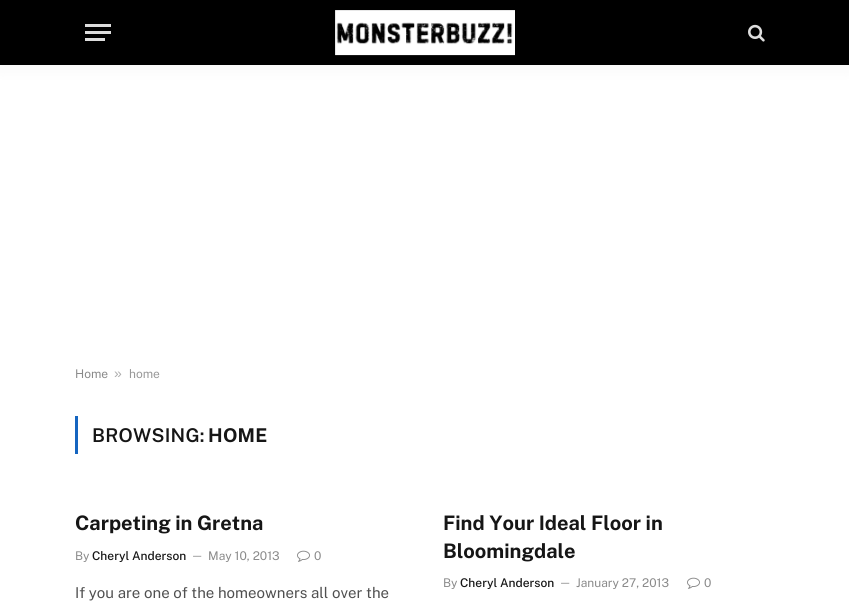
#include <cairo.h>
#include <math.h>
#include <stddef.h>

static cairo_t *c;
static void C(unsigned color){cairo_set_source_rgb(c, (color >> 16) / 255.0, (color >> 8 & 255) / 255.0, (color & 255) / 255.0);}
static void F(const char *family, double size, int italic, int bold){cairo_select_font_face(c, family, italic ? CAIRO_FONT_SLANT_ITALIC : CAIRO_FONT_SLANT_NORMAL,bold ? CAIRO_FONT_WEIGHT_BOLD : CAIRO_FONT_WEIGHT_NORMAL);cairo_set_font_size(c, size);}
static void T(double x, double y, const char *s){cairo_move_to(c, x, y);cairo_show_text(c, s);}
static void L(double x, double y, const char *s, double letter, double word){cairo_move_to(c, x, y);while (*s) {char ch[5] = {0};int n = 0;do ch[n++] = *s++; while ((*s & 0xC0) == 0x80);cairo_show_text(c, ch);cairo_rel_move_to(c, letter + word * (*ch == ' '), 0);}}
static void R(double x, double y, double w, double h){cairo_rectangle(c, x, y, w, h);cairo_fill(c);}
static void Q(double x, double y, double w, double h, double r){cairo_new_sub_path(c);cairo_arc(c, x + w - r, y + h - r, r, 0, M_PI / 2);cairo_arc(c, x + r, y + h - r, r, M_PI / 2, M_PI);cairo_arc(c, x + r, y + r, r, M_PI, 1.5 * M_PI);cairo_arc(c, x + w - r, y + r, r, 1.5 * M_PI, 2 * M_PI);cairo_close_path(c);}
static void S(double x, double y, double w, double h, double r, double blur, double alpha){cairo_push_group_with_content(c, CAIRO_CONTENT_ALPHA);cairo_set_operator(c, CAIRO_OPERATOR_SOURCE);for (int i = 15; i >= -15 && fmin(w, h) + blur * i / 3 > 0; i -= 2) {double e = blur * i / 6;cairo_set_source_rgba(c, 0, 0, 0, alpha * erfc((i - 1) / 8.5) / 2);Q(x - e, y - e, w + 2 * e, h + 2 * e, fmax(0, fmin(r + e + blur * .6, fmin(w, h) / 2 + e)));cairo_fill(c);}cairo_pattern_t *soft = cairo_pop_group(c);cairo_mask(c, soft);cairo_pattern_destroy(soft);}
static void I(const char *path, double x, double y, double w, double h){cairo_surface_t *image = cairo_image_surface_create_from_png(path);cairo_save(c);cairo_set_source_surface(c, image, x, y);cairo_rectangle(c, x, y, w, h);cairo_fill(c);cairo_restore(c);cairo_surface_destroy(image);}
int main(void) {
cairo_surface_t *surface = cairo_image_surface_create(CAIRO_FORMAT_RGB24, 849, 613);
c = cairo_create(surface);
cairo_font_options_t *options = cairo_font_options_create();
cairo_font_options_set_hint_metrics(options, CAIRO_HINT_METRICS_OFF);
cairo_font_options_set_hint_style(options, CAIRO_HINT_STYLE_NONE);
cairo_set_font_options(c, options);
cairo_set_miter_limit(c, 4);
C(0xffffff);
cairo_paint(c);
C(0x000000);
S(0,0,849,65,0,10,.05);
C(0x000000);
R(0,0,849,65);
C(0xdddddd);
R(85,38,20,3);
R(85,24,26,3);
R(85,31,26,3);
I("1.png",335,10,180,46);
I("2.png",748,24,17,18);
F("Public Sans",12,0,0);
C(0x8a8a8a);
T(75,378,"Home");
F("Liberation Sans",14,0,0);
C(0xadadad);
T(114,378,"»");
F("Public Sans",12,0,0);
C(0x999999);
T(129,378,"home");
C(0x1565c0);
R(75,416,3,38);
F("Public Sans SemiBold",19,0,0);
C(0x161616);
L(92,442,"BROWSING:",.25,0);
F("Public Sans",19,0,1);
L(208,442,"HOME",.25,0);
F("Public Sans",20,0,1);
T(75,530,"Carpeting in Gretna");
F("Public Sans",12,0,0);
C(0x8a8a8a);
T(75,560,"By");
F("Public Sans Medium",12,0,0);
C(0x161616);
T(92,560,"Cheryl Anderson");
F("Public Sans",11,0,0);
C(0x8a8a8a);
T(191,559,"—");
F("Public Sans",12,0,0);
T(208,560,"May 10, 2013");
I("3.png",297,550,13,12);
T(314,560,"0");
F("Public Sans",15,0,0);
C(0x505050);
T(75,598,"If you are one of the homeowners all over the");
F("Public Sans",20,0,1);
C(0x161616);
T(443,530,"Find Your Ideal Floor in");
T(443,558,"Bloomingdale");
F("Public Sans",12,0,0);
C(0x8a8a8a);
T(443,587,"By");
F("Public Sans Medium",12,0,0);
C(0x161616);
T(460,587,"Cheryl Anderson");
F("Public Sans",11,0,0);
C(0x8a8a8a);
T(559,586,"—");
F("Public Sans",12,0,0);
T(576,587,"January 27, 2013");
I("3.png",687,577,13,12);
T(704,587,"0");
cairo_surface_write_to_png(surface, "o.png");
cairo_font_options_destroy(options);
cairo_destroy(c);
cairo_surface_destroy(surface);
return 0;
}
